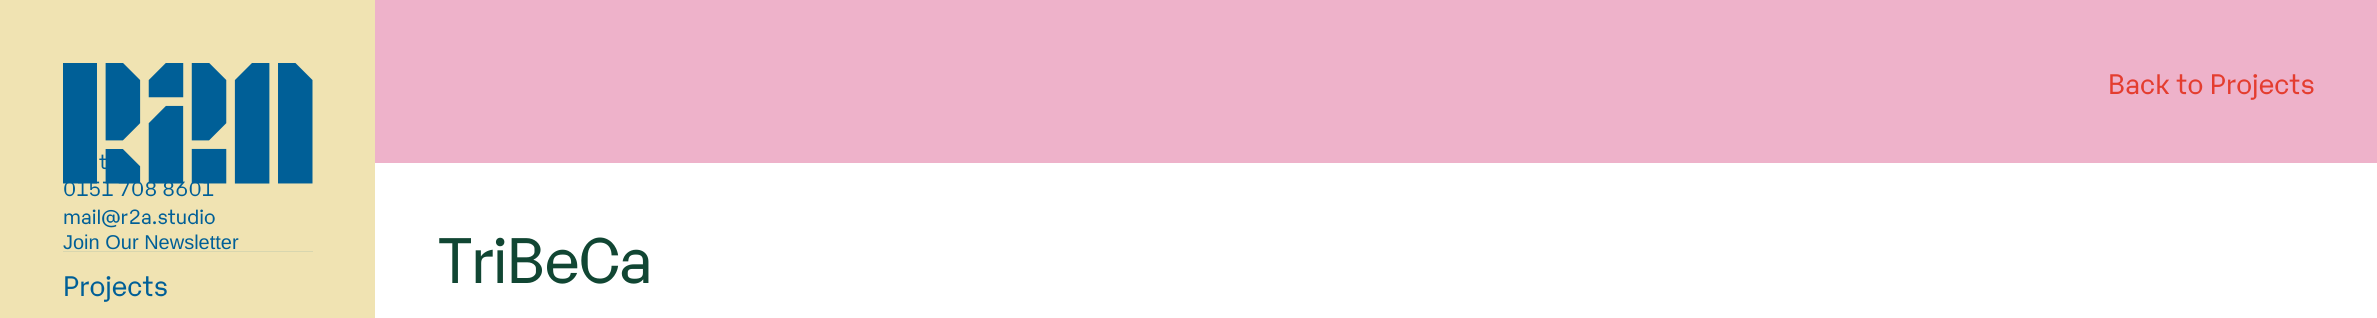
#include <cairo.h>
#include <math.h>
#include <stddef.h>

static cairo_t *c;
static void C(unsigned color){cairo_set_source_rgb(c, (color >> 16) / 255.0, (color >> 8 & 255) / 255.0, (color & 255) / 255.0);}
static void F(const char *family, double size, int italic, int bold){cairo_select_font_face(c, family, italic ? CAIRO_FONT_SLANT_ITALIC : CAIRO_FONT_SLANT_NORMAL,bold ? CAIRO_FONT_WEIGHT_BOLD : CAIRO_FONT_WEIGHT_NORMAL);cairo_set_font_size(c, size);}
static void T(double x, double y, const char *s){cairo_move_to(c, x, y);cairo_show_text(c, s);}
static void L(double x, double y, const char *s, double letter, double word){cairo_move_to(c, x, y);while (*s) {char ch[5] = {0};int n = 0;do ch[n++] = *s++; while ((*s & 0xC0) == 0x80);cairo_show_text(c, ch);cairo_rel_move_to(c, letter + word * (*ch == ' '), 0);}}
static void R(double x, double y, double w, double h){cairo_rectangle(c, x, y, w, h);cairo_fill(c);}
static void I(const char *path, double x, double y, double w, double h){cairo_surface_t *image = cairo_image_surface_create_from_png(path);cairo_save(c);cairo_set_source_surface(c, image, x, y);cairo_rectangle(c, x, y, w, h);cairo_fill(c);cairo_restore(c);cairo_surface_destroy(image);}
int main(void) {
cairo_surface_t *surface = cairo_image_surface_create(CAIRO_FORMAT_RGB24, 2377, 318);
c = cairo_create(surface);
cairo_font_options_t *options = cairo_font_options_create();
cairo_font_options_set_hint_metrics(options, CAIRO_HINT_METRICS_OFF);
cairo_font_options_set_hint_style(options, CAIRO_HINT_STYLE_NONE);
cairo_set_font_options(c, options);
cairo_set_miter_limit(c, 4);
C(0xffffff);
cairo_paint(c);
C(0xf0e3b2);
R(0,0,375,318);
I("1.png",63,63,250,121);
F("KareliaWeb",20,0,0);
C(0x005f97);
T(99,169,"t");
T(63,196,"0151 708 8601");
T(63,224,"mail@r2a.studio");
F("Liberation Sans",20,0,0);
T(63,249,"Join Our Newsletter");
C(0xd8d6af);
R(63,251,250,1);
F("KareliaWeb",27.5,0,0);
C(0x005f97);
T(63,296,"Projects");
C(0xeeb2ca);
R(375,0,2002,163);
C(0xe43d2f);
T(2108,94,"Back to Projects");
F("KareliaWeb",62.5,0,0);
C(0x114633);
L(438,283,"TriBeCa",-1.25,0);
cairo_surface_write_to_png(surface, "o.png");
cairo_font_options_destroy(options);
cairo_destroy(c);
cairo_surface_destroy(surface);
return 0;
}
